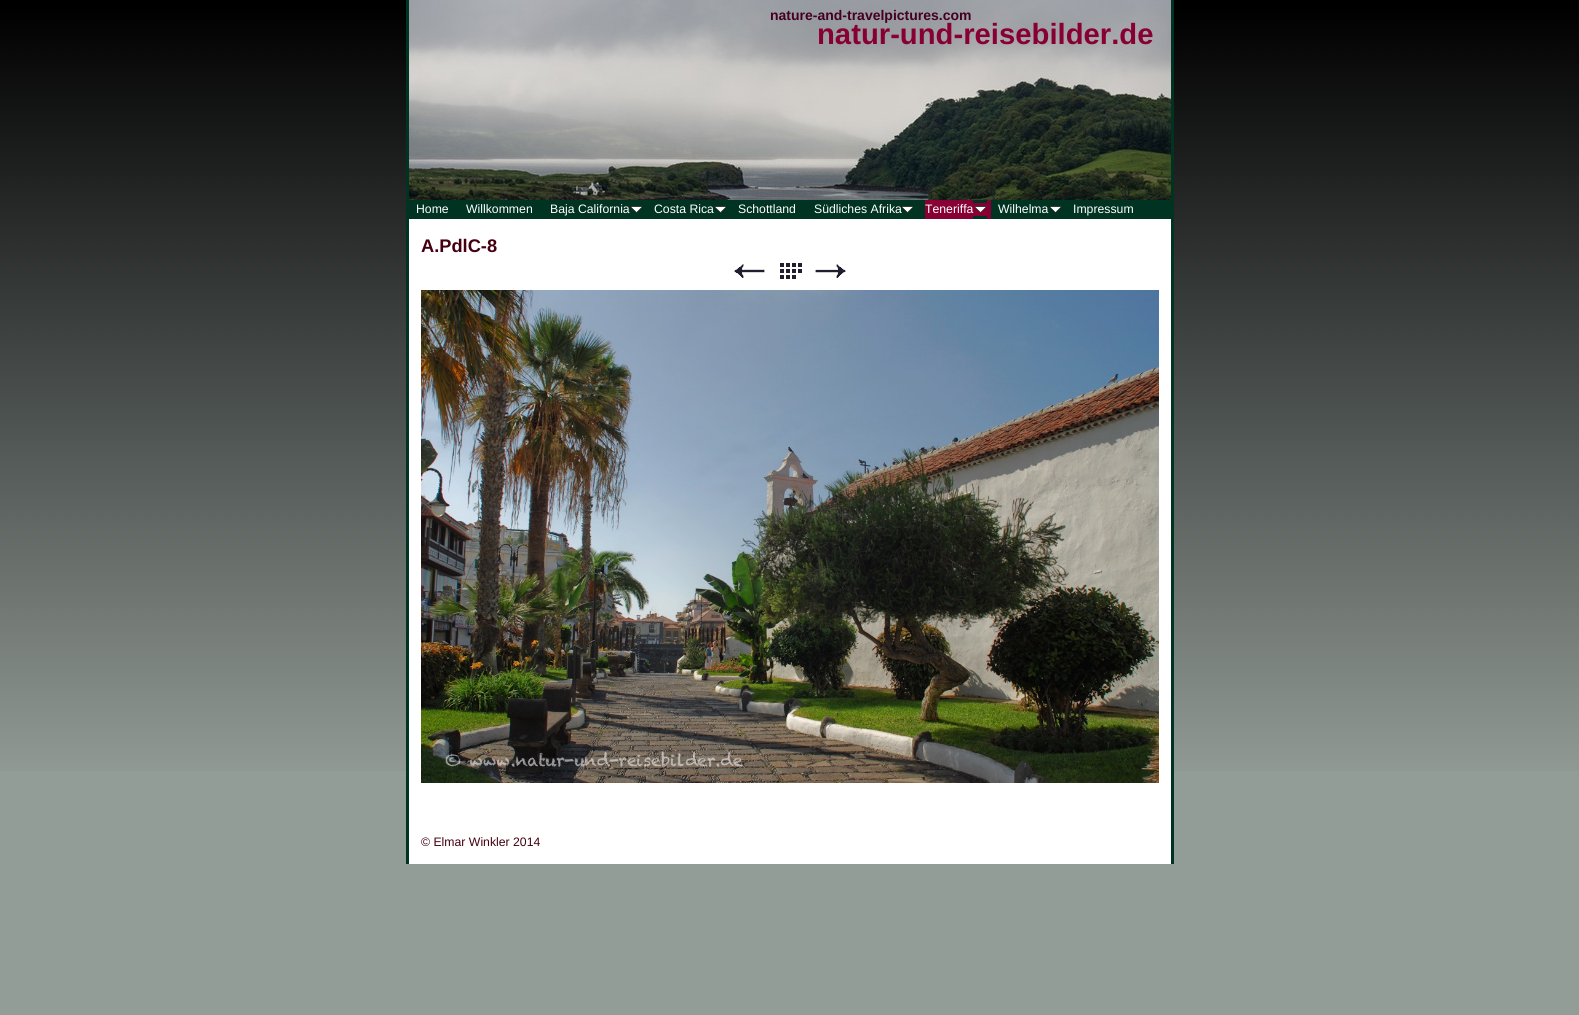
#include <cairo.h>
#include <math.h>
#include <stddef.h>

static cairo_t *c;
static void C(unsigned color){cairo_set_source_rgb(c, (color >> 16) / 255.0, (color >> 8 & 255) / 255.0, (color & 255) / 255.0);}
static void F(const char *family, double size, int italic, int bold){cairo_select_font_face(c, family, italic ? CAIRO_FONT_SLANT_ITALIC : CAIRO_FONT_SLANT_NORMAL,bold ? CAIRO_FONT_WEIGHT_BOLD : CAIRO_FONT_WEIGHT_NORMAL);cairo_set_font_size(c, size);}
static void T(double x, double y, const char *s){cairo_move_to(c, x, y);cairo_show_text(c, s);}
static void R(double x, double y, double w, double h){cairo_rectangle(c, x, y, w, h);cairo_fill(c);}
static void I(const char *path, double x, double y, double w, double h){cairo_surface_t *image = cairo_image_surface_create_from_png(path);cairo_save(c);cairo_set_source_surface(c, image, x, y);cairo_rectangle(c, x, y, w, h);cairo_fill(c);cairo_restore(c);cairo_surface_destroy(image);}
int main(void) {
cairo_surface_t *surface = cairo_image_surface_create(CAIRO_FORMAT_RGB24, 1579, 1015);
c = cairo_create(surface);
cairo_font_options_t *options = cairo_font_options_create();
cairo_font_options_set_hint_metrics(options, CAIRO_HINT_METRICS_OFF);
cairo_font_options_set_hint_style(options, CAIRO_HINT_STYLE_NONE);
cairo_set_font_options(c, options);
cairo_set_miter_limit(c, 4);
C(0x929d97);
cairo_paint(c);
I("1.png",0,0,1579,771);
C(0xffffff);
R(409,219,762,645);
C(0x003322);
R(1171,0,3,864);
R(406,0,3,864);
I("2.png",409,0,762,200);
F("Liberation Sans",14,0,1);
C(0x440022);
T(770,20,"nature-and-travelpictures.com");
F("Liberation Sans",29.25,0,1);
C(0x880033);
T(817,44,"natur-und-reisebilder.de");
C(0x003322);
R(409,200,762,19);
F("Liberation Sans",12.25,0,0);
C(0xffffff);
T(416,213,"Home");
T(466,213,"Willkommen");
T(550,213,"Baja California");
I("3.png",631,206,11,7);
T(654,213,"Costa Rica");
I("3.png",715,206,11,7);
T(738,213,"Schottland");
T(814,213,"Südliches Afrika");
I("3.png",902,206,11,7);
C(0x880033);
R(925,200,48,19);
R(973,203,14,13);
R(987,200,4,19);
C(0xffffff);
T(925,213,"Teneriffa");
I("4.png",975,206,11,7);
T(998,213,"Wilhelma");
I("3.png",1050,206,11,7);
T(1073,213,"Impressum");
F("Liberation Sans",18.25,0,1);
C(0x440011);
T(421,252,"A.PdlC-8");
I("5.png",734,264,31,14);
I("6.png",780,263,22,16);
I("7.png",815,264,31,14);
I("8.png",421,290,738,493);
F("Liberation Sans",12.25,0,0);
T(421,846,"© Elmar Winkler 2014");
cairo_surface_write_to_png(surface, "o.png");
cairo_font_options_destroy(options);
cairo_destroy(c);
cairo_surface_destroy(surface);
return 0;
}
